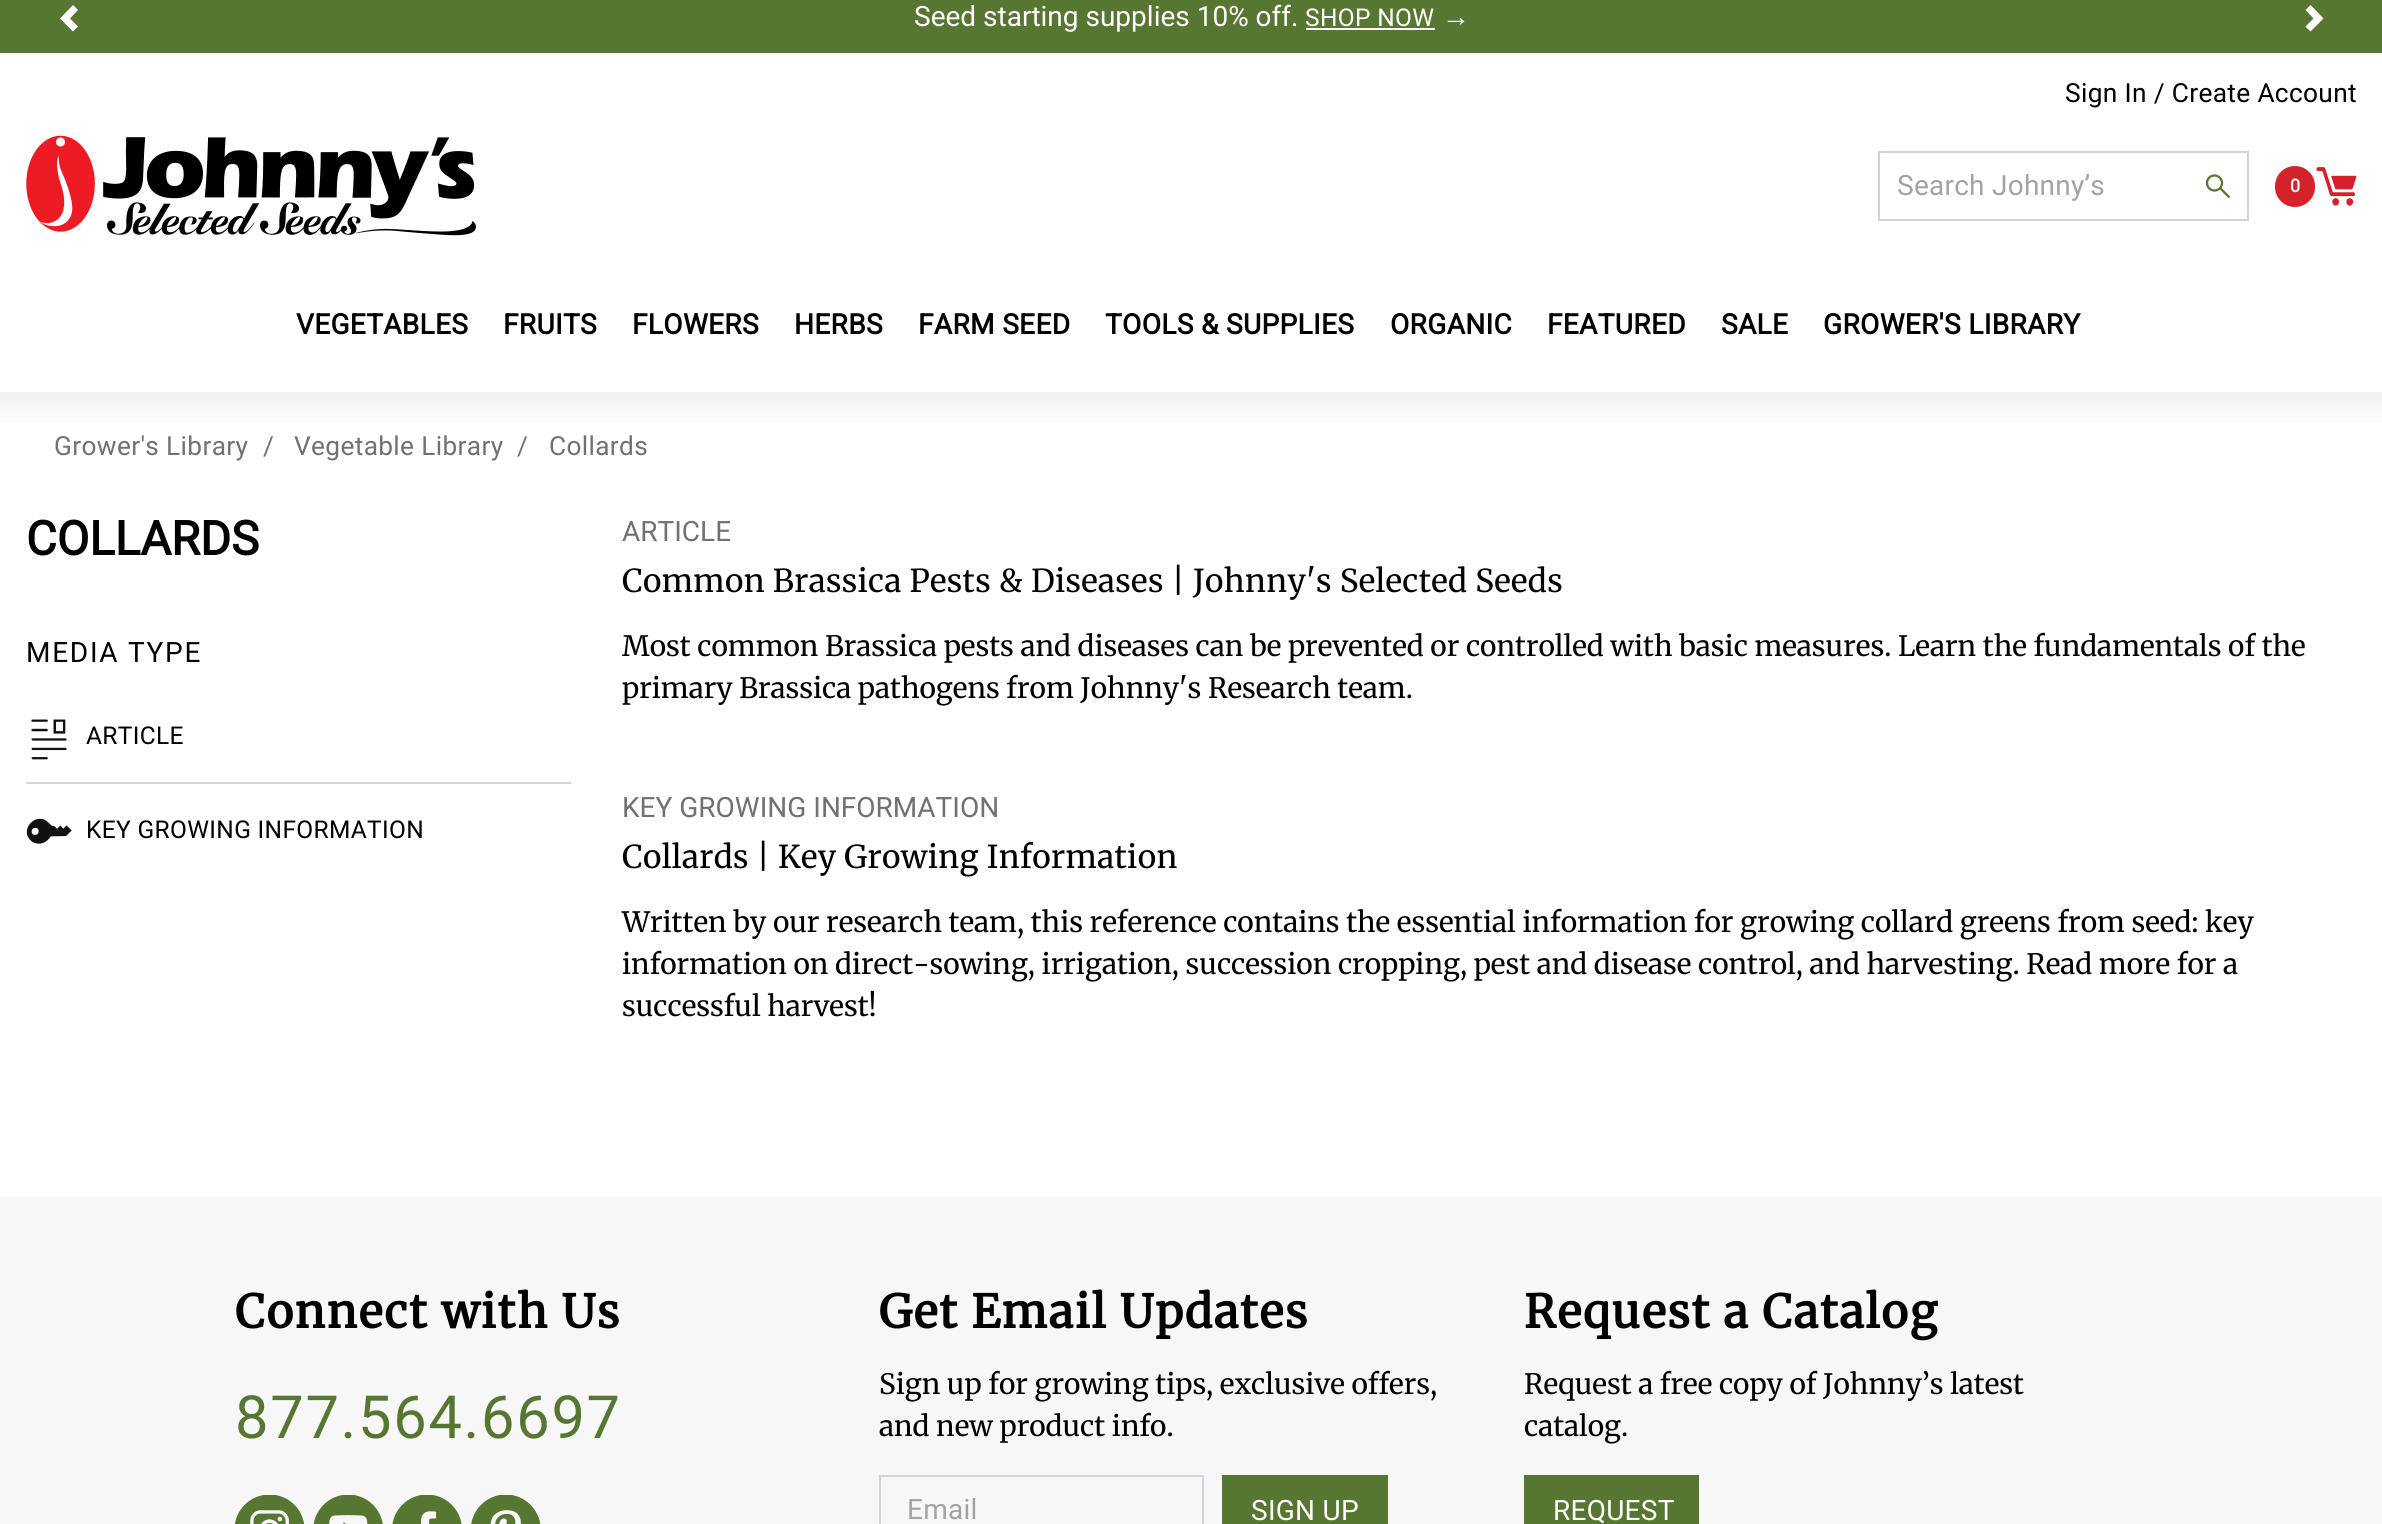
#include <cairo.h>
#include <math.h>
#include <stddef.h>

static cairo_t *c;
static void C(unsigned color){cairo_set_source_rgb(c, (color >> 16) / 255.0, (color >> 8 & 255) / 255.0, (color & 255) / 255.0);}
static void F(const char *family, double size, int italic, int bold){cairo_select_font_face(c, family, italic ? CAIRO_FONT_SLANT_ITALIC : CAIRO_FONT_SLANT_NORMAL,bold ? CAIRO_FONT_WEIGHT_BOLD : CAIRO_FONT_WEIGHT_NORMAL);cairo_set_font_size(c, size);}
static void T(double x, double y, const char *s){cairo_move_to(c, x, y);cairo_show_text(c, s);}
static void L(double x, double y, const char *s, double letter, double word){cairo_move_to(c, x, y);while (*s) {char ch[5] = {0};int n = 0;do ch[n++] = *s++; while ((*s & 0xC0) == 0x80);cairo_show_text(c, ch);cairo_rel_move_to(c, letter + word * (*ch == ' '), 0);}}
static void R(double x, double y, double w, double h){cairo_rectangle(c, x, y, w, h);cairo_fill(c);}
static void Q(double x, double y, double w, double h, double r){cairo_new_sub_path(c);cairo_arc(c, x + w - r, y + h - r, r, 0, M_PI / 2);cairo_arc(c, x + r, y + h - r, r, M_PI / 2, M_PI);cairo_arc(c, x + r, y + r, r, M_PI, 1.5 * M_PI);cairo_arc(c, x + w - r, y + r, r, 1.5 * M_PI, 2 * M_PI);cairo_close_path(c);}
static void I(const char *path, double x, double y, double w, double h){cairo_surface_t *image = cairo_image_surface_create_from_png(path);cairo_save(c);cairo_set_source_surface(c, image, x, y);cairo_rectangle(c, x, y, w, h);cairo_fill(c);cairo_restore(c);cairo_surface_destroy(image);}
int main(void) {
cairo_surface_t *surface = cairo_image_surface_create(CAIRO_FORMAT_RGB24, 2382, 1524);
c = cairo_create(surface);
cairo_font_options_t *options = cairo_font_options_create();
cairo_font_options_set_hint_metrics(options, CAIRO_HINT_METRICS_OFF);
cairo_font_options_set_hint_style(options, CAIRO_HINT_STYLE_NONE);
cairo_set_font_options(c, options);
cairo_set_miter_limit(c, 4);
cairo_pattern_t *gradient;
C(0xffffff);
cairo_paint(c);
C(0x567632);
R(0,0,2382,53);
C(0xffffff);
cairo_new_path(c);
cairo_move_to(c,73,5);
cairo_line_to(c,60,18.5);
cairo_line_to(c,73,31.5);
cairo_line_to(c,78,26.5);
cairo_line_to(c,70,18.5);
cairo_line_to(c,78,10);
cairo_close_path(c);
cairo_fill(c);
F("Roboto",28,0,0);
T(914,26,"Seed starting supplies 10% off.");
F("Roboto",24.5,0,0);
L(1305,26,"SHOP NOW",.35,0);
R(1306,28,129,2);
F("Liberation Sans",28,0,0);
T(1442,26,"→");
cairo_new_path(c);
cairo_move_to(c,2310.5,5);
cairo_line_to(c,2305.5,10);
cairo_line_to(c,2313.5,18.5);
cairo_line_to(c,2305.5,26.5);
cairo_line_to(c,2310.5,31.5);
cairo_line_to(c,2323.5,18.5);
cairo_close_path(c);
cairo_fill(c);
F("Roboto",26.25,0,0);
C(0x000000);
L(2065,102,"Sign In / Create Account",.35,0);
I("1.png",26,135,450,101);
cairo_rectangle(c,1879,152,369,68);
C(0xced4da);
cairo_stroke(c);
F("Roboto",28,0,0);
C(0xa3a3a3);
L(1897,195,"Search Johnny’s",.25,0);
cairo_new_path(c);
cairo_arc(c,2214.5,183,7.5,0,2 * M_PI);
C(0x567632);
cairo_set_line_width(c,2.3);
cairo_stroke(c);
cairo_new_path(c);
cairo_move_to(c,2220.5,188.5);
cairo_line_to(c,2229.5,197.5);
cairo_stroke(c);
C(0xd3222a);
Q(2275,166,40,41,20);
cairo_fill(c);
F("Roboto",18,0,1);
C(0xffffff);
T(2290,192,"0");
I("2.png",2316,167,41,39);
F("Roboto",28,0,1);
C(0x000000);
L(296,334,"VEGETABLES",.35,0);
L(503,334,"FRUITS",.35,0);
L(632,334,"FLOWERS",.35,0);
L(794,334,"HERBS",.35,0);
L(918,334,"FARM SEED",.35,0);
L(1105,334,"TOOLS & SUPPLIES",.35,0);
L(1390,334,"ORGANIC",.35,0);
L(1547,334,"FEATURED",.35,0);
L(1721,334,"SALE",.35,0);
L(1823,334,"GROWER'S LIBRARY",.35,0);
gradient = cairo_pattern_create_linear(1192,431,1192,392);
cairo_pattern_add_color_stop_rgba(gradient,0,1,1,1,1);
cairo_pattern_add_color_stop_rgba(gradient,1,0.949,0.949,0.949,1);
cairo_set_source(c,gradient);
cairo_pattern_destroy(gradient);
R(0,392,2382,31);
F("Roboto",26.25,0,0);
C(0x717171);
L(54,455,"Grower's Library",.35,0);
C(0x6c757d);
T(263,455,"/");
C(0x717171);
L(294,455,"Vegetable Library",.35,0);
C(0x6c757d);
T(517,455,"/");
C(0x717171);
L(549,455,"Collards",.35,0);
F("Roboto",47.25,0,1);
C(0x000000);
T(26,555,"COLLARDS");
F("Roboto",28,0,0);
L(26,662,"MEDIA TYPE",1.75,0);
C(0xd6d6d6);
R(26,782,545,2);
I("3.png",31,719,36,41);
F("Roboto",24.5,0,0);
C(0x000000);
L(86,744,"ARTICLE",.35,0);
I("4.png",26,818,46,26);
L(86,838,"KEY GROWING INFORMATION",.35,0);
F("Roboto",28,0,0);
C(0x717171);
T(622,541,"ARTICLE");
F("Merriweather Light",31.5,0,0);
C(0x000000);
L(622,592,"Common Brassica Pests & Diseases | Johnny's Selected Seeds",.35,0);
F("Merriweather Light",28,0,0);
T(622,656,"Most common Brassica pests and diseases can be prevented or controlled with basic measures. Learn the fundamentals of the");
T(622,698,"primary Brassica pathogens from Johnny's Research team.");
F("Roboto",28,0,0);
C(0x717171);
T(622,817,"KEY GROWING INFORMATION");
F("Merriweather Light",31.5,0,0);
C(0x000000);
L(622,868,"Collards | Key Growing Information",.35,0);
F("Merriweather Light",28,0,0);
T(622,932,"Written by our research team, this reference contains the essential information for growing collard greens from seed: key");
T(622,974,"information on direct-sowing, irrigation, succession cropping, pest and disease control, and harvesting. Read more for a");
T(622,1016,"successful harvest!");
C(0xf7f7f7);
R(0,1197,2382,327);
F("Merriweather",45.5,0,1);
C(0x000000);
L(235,1328,"Connect with Us",1.75,0);
F("Roboto",59.5,0,0);
C(0x567632);
L(235,1438,"877.564.6697",1.75,0);
I("5.png",235,1495,69,29);
I("6.png",313,1495,70,29);
I("7.png",392,1495,70,29);
I("8.png",471,1495,70,29);
F("Merriweather",45.5,0,1);
C(0x000000);
L(879,1328,"Get Email Updates",1.75,0);
F("Merriweather Light",28,0,0);
T(879,1394,"Sign up for growing tips, exclusive offers,");
T(879,1436,"and new product info.");
cairo_rectangle(c,880,1476,323,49);
C(0xced4da);
cairo_set_line_width(c,2);
cairo_stroke(c);
F("Roboto",28,0,0);
C(0xa3a3a3);
L(907,1519,"Email",.25,0);
C(0x567632);
R(1222,1475,166,49);
C(0xffffff);
L(1251,1520,"SIGN UP",.25,0);
F("Merriweather",45.5,0,1);
C(0x000000);
L(1524,1328,"Request a Catalog",1.75,0);
F("Merriweather Light",28,0,0);
T(1524,1394,"Request a free copy of Johnny’s latest");
T(1524,1436,"catalog.");
C(0x567632);
R(1524,1475,175,49);
F("Roboto",28,0,0);
C(0xffffff);
L(1553,1520,"REQUEST",.25,0);
cairo_surface_write_to_png(surface, "o.png");
cairo_font_options_destroy(options);
cairo_destroy(c);
cairo_surface_destroy(surface);
return 0;
}
